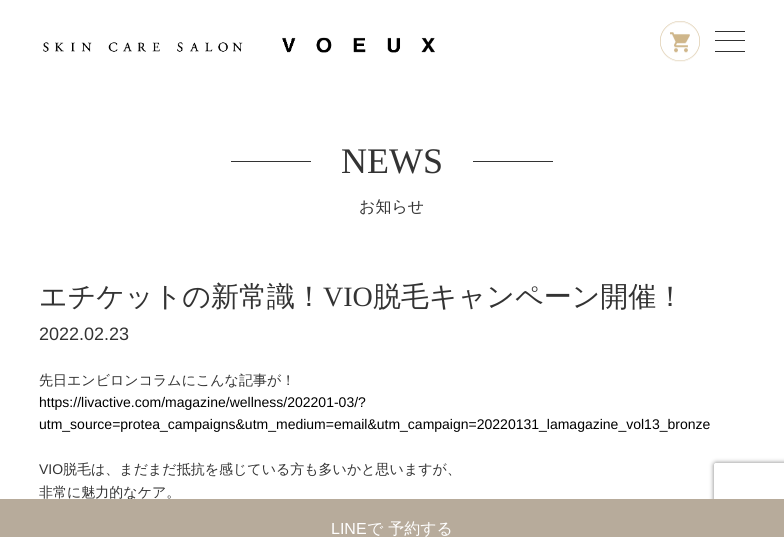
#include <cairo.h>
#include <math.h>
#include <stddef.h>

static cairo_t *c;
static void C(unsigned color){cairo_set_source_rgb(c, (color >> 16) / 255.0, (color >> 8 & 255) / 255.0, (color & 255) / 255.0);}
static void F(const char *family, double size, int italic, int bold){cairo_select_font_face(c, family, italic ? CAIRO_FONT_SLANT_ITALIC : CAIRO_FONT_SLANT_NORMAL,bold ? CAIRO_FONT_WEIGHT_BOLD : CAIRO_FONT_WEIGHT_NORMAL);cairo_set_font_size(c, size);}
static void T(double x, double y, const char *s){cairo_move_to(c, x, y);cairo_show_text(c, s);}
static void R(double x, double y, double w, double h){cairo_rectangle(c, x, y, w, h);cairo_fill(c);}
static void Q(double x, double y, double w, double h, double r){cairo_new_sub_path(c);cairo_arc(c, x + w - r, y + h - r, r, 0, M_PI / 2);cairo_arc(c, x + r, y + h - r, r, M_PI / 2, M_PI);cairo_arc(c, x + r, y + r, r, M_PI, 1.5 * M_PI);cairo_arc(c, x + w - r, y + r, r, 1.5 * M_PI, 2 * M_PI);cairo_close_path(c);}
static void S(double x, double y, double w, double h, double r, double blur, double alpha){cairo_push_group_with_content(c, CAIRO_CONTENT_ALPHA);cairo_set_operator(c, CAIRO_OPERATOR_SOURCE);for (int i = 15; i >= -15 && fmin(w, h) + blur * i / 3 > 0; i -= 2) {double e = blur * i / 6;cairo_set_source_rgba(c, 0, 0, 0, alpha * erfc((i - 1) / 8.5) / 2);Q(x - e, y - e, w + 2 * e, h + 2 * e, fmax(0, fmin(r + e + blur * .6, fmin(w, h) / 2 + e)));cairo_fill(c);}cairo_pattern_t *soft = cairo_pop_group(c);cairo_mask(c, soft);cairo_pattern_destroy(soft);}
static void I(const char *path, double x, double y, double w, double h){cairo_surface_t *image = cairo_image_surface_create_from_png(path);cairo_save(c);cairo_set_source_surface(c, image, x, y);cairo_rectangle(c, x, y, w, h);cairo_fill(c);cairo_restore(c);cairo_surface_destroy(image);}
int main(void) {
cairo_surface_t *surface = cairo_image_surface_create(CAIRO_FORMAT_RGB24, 784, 537);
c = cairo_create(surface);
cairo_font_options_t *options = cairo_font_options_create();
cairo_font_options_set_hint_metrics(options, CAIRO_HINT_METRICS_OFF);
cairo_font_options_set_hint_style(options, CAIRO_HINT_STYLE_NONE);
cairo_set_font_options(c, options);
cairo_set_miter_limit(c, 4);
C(0xffffff);
cairo_paint(c);
I("1.png",43,37,392,16);
I("2.png",660,21,40,41);
C(0x303030);
R(715,31,30,1);
R(715,40,30,1);
R(715,51,30,1);
C(0x333333);
R(231,161,80,1);
F("Liberation Serif",36,0,0);
T(341,173,"NEWS");
R(473,161,80,1);
F("WenQuanYi Zen Hei Medium",16,0,0);
T(359,212,"お知らせ");
F("WenQuanYi Zen Hei Medium",28,0,0);
T(39,306,"エチケットの新常識！");
F("Liberation Serif",28,0,0);
T(323,306,"VIO");
F("WenQuanYi Zen Hei Medium",28,0,0);
T(373,306,"脱毛キャンペーン開催！");
F("Liberation Sans",18,0,0);
T(39,340,"2022.02.23");
F("WenQuanYi Zen Hei Medium",14,0,0);
T(39,385,"先日エンビロンコラムにこんな記事が！");
F("Liberation Sans",14,0,0);
C(0x000000);
T(39,407,"https://livactive.com/magazine/wellness/202201-03/?");
T(39,429,"utm_source=protea_campaigns&utm_medium=email&utm_campaign=20220131_lamagazine_vol13_bronze");
C(0x333333);
T(39,474,"VIO");
F("WenQuanYi Zen Hei Medium",14,0,0);
T(63,474,"脱毛は、まだまだ抵抗を感じている方も多いかと思いますが、");
T(39,497,"非常に魅力的なケア。");
cairo_save(c);
cairo_set_fill_rule(c,CAIRO_FILL_RULE_EVEN_ODD);
cairo_new_path(c);
cairo_move_to(c,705,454);
cairo_line_to(c,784,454);
cairo_line_to(c,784,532);
cairo_line_to(c,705,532);
cairo_close_path(c);
cairo_move_to(c,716,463);
cairo_line_to(c,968,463);
cairo_curve_to(c,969,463,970,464,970,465);
cairo_line_to(c,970,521);
cairo_curve_to(c,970,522,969,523,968,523);
cairo_line_to(c,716,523);
cairo_curve_to(c,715,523,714,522,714,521);
cairo_line_to(c,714,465);
cairo_curve_to(c,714,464,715,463,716,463);
cairo_close_path(c);
cairo_clip(c);
C(0x808080);
S(714,463,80,60,2,2.5,1);
cairo_restore(c);
C(0xb7ab9b);
R(0,499,784,38);
F("Liberation Sans",16,0,0);
C(0xffffff);
T(331,534,"LINE");
F("WenQuanYi Zen Hei Medium",16,0,0);
T(367,534,"で 予約する");
cairo_surface_write_to_png(surface, "o.png");
cairo_font_options_destroy(options);
cairo_destroy(c);
cairo_surface_destroy(surface);
return 0;
}
